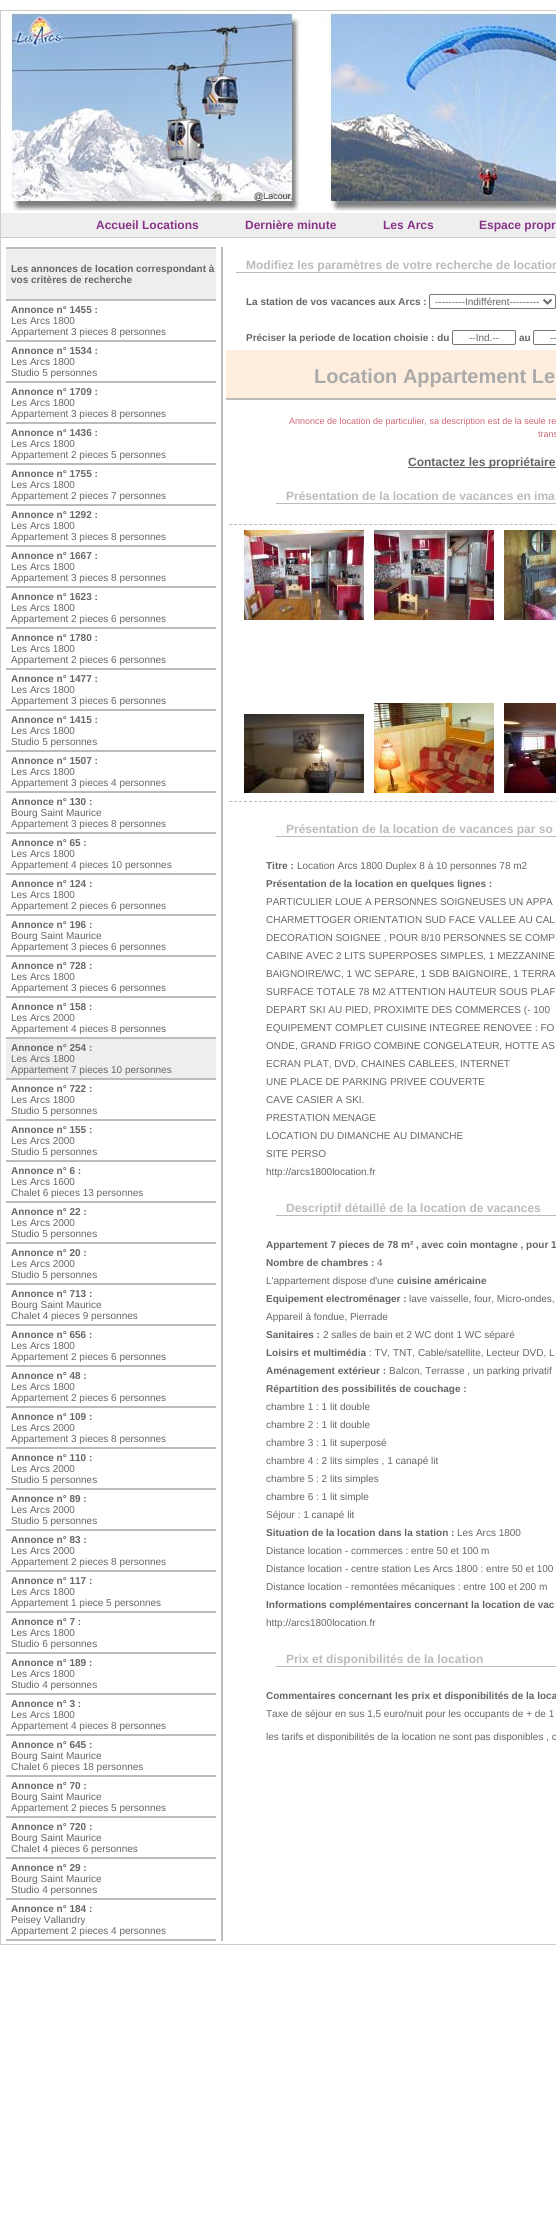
#include <cairo.h>
#include <math.h>
#include <stddef.h>

static cairo_t *c;
static void C(unsigned color){cairo_set_source_rgb(c, (color >> 16) / 255.0, (color >> 8 & 255) / 255.0, (color & 255) / 255.0);}
static void F(const char *family, double size, int italic, int bold){cairo_select_font_face(c, family, italic ? CAIRO_FONT_SLANT_ITALIC : CAIRO_FONT_SLANT_NORMAL,bold ? CAIRO_FONT_WEIGHT_BOLD : CAIRO_FONT_WEIGHT_NORMAL);cairo_set_font_size(c, size);}
static void T(double x, double y, const char *s){cairo_move_to(c, x, y);cairo_show_text(c, s);}
static void R(double x, double y, double w, double h){cairo_rectangle(c, x, y, w, h);cairo_fill(c);}
static void Q(double x, double y, double w, double h, double r){cairo_new_sub_path(c);cairo_arc(c, x + w - r, y + h - r, r, 0, M_PI / 2);cairo_arc(c, x + r, y + h - r, r, M_PI / 2, M_PI);cairo_arc(c, x + r, y + r, r, M_PI, 1.5 * M_PI);cairo_arc(c, x + w - r, y + r, r, 1.5 * M_PI, 2 * M_PI);cairo_close_path(c);}
static void I(const char *path, double x, double y, double w, double h){cairo_surface_t *image = cairo_image_surface_create_from_png(path);cairo_save(c);cairo_set_source_surface(c, image, x, y);cairo_rectangle(c, x, y, w, h);cairo_fill(c);cairo_restore(c);cairo_surface_destroy(image);}
int main(void) {
cairo_surface_t *surface = cairo_image_surface_create(CAIRO_FORMAT_RGB24, 556, 2236);
c = cairo_create(surface);
cairo_font_options_t *options = cairo_font_options_create();
cairo_font_options_set_hint_metrics(options, CAIRO_HINT_METRICS_OFF);
cairo_font_options_set_hint_style(options, CAIRO_HINT_STYLE_NONE);
cairo_set_font_options(c, options);
cairo_set_miter_limit(c, 4);
C(0xffffff);
cairo_paint(c);
I("1.png",7,11,549,200);
cairo_rectangle(c,.5,10.5,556,1934);
C(0xcccccc);
cairo_set_line_width(c,1);
cairo_stroke(c);
C(0xeeeeee);
R(1,213,555,24);
C(0xcccccc);
R(1,237,555,1);
F("Liberation Sans",12,0,1);
C(0x883388);
T(96,229,"Accueil Locations");
T(245,229,"Dernière minute");
T(383,229,"Les Arcs");
T(479,229,"Espace propr");
C(0xbbbbbb);
R(221,247,2,1694);
R(6,1939,210,2);
C(0xeeeeee);
R(6,249,210,50);
C(0xbbbbbb);
R(6,247,210,2);
F("Liberation Sans",10,0,1);
C(0x666666);
T(11,272,"Les annonces de location correspondant à");
T(11,283,"vos critères de recherche");
C(0xbbbbbb);
R(6,299,210,2);
C(0x666666);
T(11,313,"Annonce n° 1455 :");
F("Liberation Sans",10,0,0);
T(11,324,"Les Arcs 1800");
T(11,335,"Appartement 3 pieces 8 personnes");
C(0xbbbbbb);
R(6,340,210,2);
F("Liberation Sans",10,0,1);
C(0x666666);
T(11,354,"Annonce n° 1534 :");
F("Liberation Sans",10,0,0);
T(11,365,"Les Arcs 1800");
T(11,376,"Studio 5 personnes");
C(0xbbbbbb);
R(6,381,210,2);
F("Liberation Sans",10,0,1);
C(0x666666);
T(11,395,"Annonce n° 1709 :");
F("Liberation Sans",10,0,0);
T(11,406,"Les Arcs 1800");
T(11,417,"Appartement 3 pieces 8 personnes");
C(0xbbbbbb);
R(6,422,210,2);
F("Liberation Sans",10,0,1);
C(0x666666);
T(11,436,"Annonce n° 1436 :");
F("Liberation Sans",10,0,0);
T(11,447,"Les Arcs 1800");
T(11,458,"Appartement 2 pieces 5 personnes");
C(0xbbbbbb);
R(6,463,210,2);
F("Liberation Sans",10,0,1);
C(0x666666);
T(11,477,"Annonce n° 1755 :");
F("Liberation Sans",10,0,0);
T(11,488,"Les Arcs 1800");
T(11,499,"Appartement 2 pieces 7 personnes");
C(0xbbbbbb);
R(6,504,210,2);
F("Liberation Sans",10,0,1);
C(0x666666);
T(11,518,"Annonce n° 1292 :");
F("Liberation Sans",10,0,0);
T(11,529,"Les Arcs 1800");
T(11,540,"Appartement 3 pieces 8 personnes");
C(0xbbbbbb);
R(6,545,210,2);
F("Liberation Sans",10,0,1);
C(0x666666);
T(11,559,"Annonce n° 1667 :");
F("Liberation Sans",10,0,0);
T(11,570,"Les Arcs 1800");
T(11,581,"Appartement 3 pieces 8 personnes");
C(0xbbbbbb);
R(6,586,210,2);
F("Liberation Sans",10,0,1);
C(0x666666);
T(11,600,"Annonce n° 1623 :");
F("Liberation Sans",10,0,0);
T(11,611,"Les Arcs 1800");
T(11,622,"Appartement 2 pieces 6 personnes");
C(0xbbbbbb);
R(6,627,210,2);
F("Liberation Sans",10,0,1);
C(0x666666);
T(11,641,"Annonce n° 1780 :");
F("Liberation Sans",10,0,0);
T(11,652,"Les Arcs 1800");
T(11,663,"Appartement 2 pieces 6 personnes");
C(0xbbbbbb);
R(6,668,210,2);
F("Liberation Sans",10,0,1);
C(0x666666);
T(11,682,"Annonce n° 1477 :");
F("Liberation Sans",10,0,0);
T(11,693,"Les Arcs 1800");
T(11,704,"Appartement 3 pieces 6 personnes");
C(0xbbbbbb);
R(6,709,210,2);
F("Liberation Sans",10,0,1);
C(0x666666);
T(11,723,"Annonce n° 1415 :");
F("Liberation Sans",10,0,0);
T(11,734,"Les Arcs 1800");
T(11,745,"Studio 5 personnes");
C(0xbbbbbb);
R(6,750,210,2);
F("Liberation Sans",10,0,1);
C(0x666666);
T(11,764,"Annonce n° 1507 :");
F("Liberation Sans",10,0,0);
T(11,775,"Les Arcs 1800");
T(11,786,"Appartement 3 pieces 4 personnes");
C(0xbbbbbb);
R(6,791,210,2);
F("Liberation Sans",10,0,1);
C(0x666666);
T(11,805,"Annonce n° 130 :");
F("Liberation Sans",10,0,0);
T(11,816,"Bourg Saint Maurice");
T(11,827,"Appartement 3 pieces 8 personnes");
C(0xbbbbbb);
R(6,832,210,2);
F("Liberation Sans",10,0,1);
C(0x666666);
T(11,846,"Annonce n° 65 :");
F("Liberation Sans",10,0,0);
T(11,857,"Les Arcs 1800");
T(11,868,"Appartement 4 pieces 10 personnes");
C(0xbbbbbb);
R(6,873,210,2);
F("Liberation Sans",10,0,1);
C(0x666666);
T(11,887,"Annonce n° 124 :");
F("Liberation Sans",10,0,0);
T(11,898,"Les Arcs 1800");
T(11,909,"Appartement 2 pieces 6 personnes");
C(0xbbbbbb);
R(6,914,210,2);
F("Liberation Sans",10,0,1);
C(0x666666);
T(11,928,"Annonce n° 196 :");
F("Liberation Sans",10,0,0);
T(11,939,"Bourg Saint Maurice");
T(11,950,"Appartement 3 pieces 6 personnes");
C(0xbbbbbb);
R(6,955,210,2);
F("Liberation Sans",10,0,1);
C(0x666666);
T(11,969,"Annonce n° 728 :");
F("Liberation Sans",10,0,0);
T(11,980,"Les Arcs 1800");
T(11,991,"Appartement 3 pieces 6 personnes");
C(0xbbbbbb);
R(6,996,210,2);
F("Liberation Sans",10,0,1);
C(0x666666);
T(11,1010,"Annonce n° 158 :");
F("Liberation Sans",10,0,0);
T(11,1021,"Les Arcs 2000");
T(11,1032,"Appartement 4 pieces 8 personnes");
C(0xeeeeee);
R(6,1039,210,39);
C(0xbbbbbb);
R(6,1037,210,2);
F("Liberation Sans",10,0,1);
C(0x666666);
T(11,1051,"Annonce n° 254 :");
F("Liberation Sans",10,0,0);
T(11,1062,"Les Arcs 1800");
T(11,1073,"Appartement 7 pieces 10 personnes");
C(0xbbbbbb);
R(6,1078,210,2);
F("Liberation Sans",10,0,1);
C(0x666666);
T(11,1092,"Annonce n° 722 :");
F("Liberation Sans",10,0,0);
T(11,1103,"Les Arcs 1800");
T(11,1114,"Studio 5 personnes");
C(0xbbbbbb);
R(6,1119,210,2);
F("Liberation Sans",10,0,1);
C(0x666666);
T(11,1133,"Annonce n° 155 :");
F("Liberation Sans",10,0,0);
T(11,1144,"Les Arcs 2000");
T(11,1155,"Studio 5 personnes");
C(0xbbbbbb);
R(6,1160,210,2);
F("Liberation Sans",10,0,1);
C(0x666666);
T(11,1174,"Annonce n° 6 :");
F("Liberation Sans",10,0,0);
T(11,1185,"Les Arcs 1600");
T(11,1196,"Chalet 6 pieces 13 personnes");
C(0xbbbbbb);
R(6,1201,210,2);
F("Liberation Sans",10,0,1);
C(0x666666);
T(11,1215,"Annonce n° 22 :");
F("Liberation Sans",10,0,0);
T(11,1226,"Les Arcs 2000");
T(11,1237,"Studio 5 personnes");
C(0xbbbbbb);
R(6,1242,210,2);
F("Liberation Sans",10,0,1);
C(0x666666);
T(11,1256,"Annonce n° 20 :");
F("Liberation Sans",10,0,0);
T(11,1267,"Les Arcs 2000");
T(11,1278,"Studio 5 personnes");
C(0xbbbbbb);
R(6,1283,210,2);
F("Liberation Sans",10,0,1);
C(0x666666);
T(11,1297,"Annonce n° 713 :");
F("Liberation Sans",10,0,0);
T(11,1308,"Bourg Saint Maurice");
T(11,1319,"Chalet 4 pieces 9 personnes");
C(0xbbbbbb);
R(6,1324,210,2);
F("Liberation Sans",10,0,1);
C(0x666666);
T(11,1338,"Annonce n° 656 :");
F("Liberation Sans",10,0,0);
T(11,1349,"Les Arcs 1800");
T(11,1360,"Appartement 2 pieces 6 personnes");
C(0xbbbbbb);
R(6,1365,210,2);
F("Liberation Sans",10,0,1);
C(0x666666);
T(11,1379,"Annonce n° 48 :");
F("Liberation Sans",10,0,0);
T(11,1390,"Les Arcs 1800");
T(11,1401,"Appartement 2 pieces 6 personnes");
C(0xbbbbbb);
R(6,1406,210,2);
F("Liberation Sans",10,0,1);
C(0x666666);
T(11,1420,"Annonce n° 109 :");
F("Liberation Sans",10,0,0);
T(11,1431,"Les Arcs 2000");
T(11,1442,"Appartement 3 pieces 8 personnes");
C(0xbbbbbb);
R(6,1447,210,2);
F("Liberation Sans",10,0,1);
C(0x666666);
T(11,1461,"Annonce n° 110 :");
F("Liberation Sans",10,0,0);
T(11,1472,"Les Arcs 2000");
T(11,1483,"Studio 5 personnes");
C(0xbbbbbb);
R(6,1488,210,2);
F("Liberation Sans",10,0,1);
C(0x666666);
T(11,1502,"Annonce n° 89 :");
F("Liberation Sans",10,0,0);
T(11,1513,"Les Arcs 2000");
T(11,1524,"Studio 5 personnes");
C(0xbbbbbb);
R(6,1529,210,2);
F("Liberation Sans",10,0,1);
C(0x666666);
T(11,1543,"Annonce n° 83 :");
F("Liberation Sans",10,0,0);
T(11,1554,"Les Arcs 2000");
T(11,1565,"Appartement 2 pieces 8 personnes");
C(0xbbbbbb);
R(6,1570,210,2);
F("Liberation Sans",10,0,1);
C(0x666666);
T(11,1584,"Annonce n° 117 :");
F("Liberation Sans",10,0,0);
T(11,1595,"Les Arcs 1800");
T(11,1606,"Appartement 1 piece 5 personnes");
C(0xbbbbbb);
R(6,1611,210,2);
F("Liberation Sans",10,0,1);
C(0x666666);
T(11,1625,"Annonce n° 7 :");
F("Liberation Sans",10,0,0);
T(11,1636,"Les Arcs 1800");
T(11,1647,"Studio 6 personnes");
C(0xbbbbbb);
R(6,1652,210,2);
F("Liberation Sans",10,0,1);
C(0x666666);
T(11,1666,"Annonce n° 189 :");
F("Liberation Sans",10,0,0);
T(11,1677,"Les Arcs 1800");
T(11,1688,"Studio 4 personnes");
C(0xbbbbbb);
R(6,1693,210,2);
F("Liberation Sans",10,0,1);
C(0x666666);
T(11,1707,"Annonce n° 3 :");
F("Liberation Sans",10,0,0);
T(11,1718,"Les Arcs 1800");
T(11,1729,"Appartement 4 pieces 8 personnes");
C(0xbbbbbb);
R(6,1734,210,2);
F("Liberation Sans",10,0,1);
C(0x666666);
T(11,1748,"Annonce n° 645 :");
F("Liberation Sans",10,0,0);
T(11,1759,"Bourg Saint Maurice");
T(11,1770,"Chalet 6 pieces 18 personnes");
C(0xbbbbbb);
R(6,1775,210,2);
F("Liberation Sans",10,0,1);
C(0x666666);
T(11,1789,"Annonce n° 70 :");
F("Liberation Sans",10,0,0);
T(11,1800,"Bourg Saint Maurice");
T(11,1811,"Appartement 2 pieces 5 personnes");
C(0xbbbbbb);
R(6,1816,210,2);
F("Liberation Sans",10,0,1);
C(0x666666);
T(11,1830,"Annonce n° 720 :");
F("Liberation Sans",10,0,0);
T(11,1841,"Bourg Saint Maurice");
T(11,1852,"Chalet 4 pieces 6 personnes");
C(0xbbbbbb);
R(6,1857,210,2);
F("Liberation Sans",10,0,1);
C(0x666666);
T(11,1871,"Annonce n° 29 :");
F("Liberation Sans",10,0,0);
T(11,1882,"Bourg Saint Maurice");
T(11,1893,"Studio 4 personnes");
C(0xbbbbbb);
R(6,1898,210,2);
F("Liberation Sans",10,0,1);
C(0x666666);
T(11,1912,"Annonce n° 184 :");
F("Liberation Sans",10,0,0);
T(11,1923,"Peisey Vallandry");
T(11,1934,"Appartement 2 pieces 4 personnes");
C(0xbbbbbb);
R(236,272,320,1);
F("Liberation Sans",12,0,1);
T(246,269,"Modifiez les paramètres de votre recherche de location");
F("Liberation Sans",10,0,1);
C(0x666666);
T(246,305,"La station de vos vacances aux Arcs :");
Q(429.5,294.5,126,14,1.5);
C(0x767676);
cairo_stroke(c);
cairo_new_path(c);
cairo_move_to(c,543.5,299.5);
cairo_line_to(c,547.5,303.5);
cairo_line_to(c,551.5,299.5);
C(0x666666);
cairo_set_line_width(c,2);
cairo_stroke(c);
F("Liberation Sans",10,0,0);
T(435,305,"---------Indifférent---------");
F("Liberation Sans",10,0,1);
T(246,341,"Préciser la periode de location choisie : du");
Q(452.5,330.5,63,14,1.5);
C(0x767676);
cairo_set_line_width(c,1);
cairo_stroke(c);
F("Liberation Sans",10,0,0);
C(0x666666);
T(469,341,"--Ind.--");
F("Liberation Sans",10,0,1);
T(519,341,"au");
Q(533.5,330.5,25,14,1.5);
C(0x767676);
cairo_stroke(c);
F("Liberation Sans",10,0,0);
C(0x666666);
T(550,341,"--");
C(0xffeedd);
R(226,350,330,48);
C(0xbbbbbb);
R(226,398,330,2);
F("Liberation Sans",20,0,1);
C(0xaaaaaa);
T(314,383,"Location Appartement Le");
F("Liberation Sans",9,0,0);
C(0xcc6677);
T(289,424,"Annonce de location de particulier, sa description est de la seule re");
T(538,437,"trans");
C(0x666666);
R(408,467,148,1);
F("Liberation Sans",12,0,1);
T(408,466,"Contactez les propriétaire");
C(0xbbbbbb);
R(276,503,280,1);
T(286,500,"Présentation de la location de vacances en ima");
cairo_new_path(c);
cairo_move_to(c,229,524.5);
cairo_line_to(c,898,524.5);
cairo_set_dash(c,(double[]){3,2.01},2,0);
cairo_stroke(c);
cairo_new_path(c);
cairo_move_to(c,229,801.5);
cairo_line_to(c,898,801.5);
cairo_stroke(c);
I("2.png",244,530,120,90);
I("3.png",374,530,120,90);
I("4.png",504,530,52,90);
I("5.png",244,714,120,79);
I("6.png",374,703,120,90);
I("7.png",504,703,52,90);
R(276,836,280,1);
T(286,833,"Présentation de la location de vacances par so");
F("Liberation Sans",10,0,1);
C(0x666666);
T(266,869,"Titre :");
F("Liberation Sans",10,0,0);
T(297,869,"Location Arcs 1800 Duplex 8 à 10 personnes 78 m2");
F("Liberation Sans",10,0,1);
T(266,887,"Présentation de la location en quelques lignes :");
F("Liberation Sans",10,0,0);
T(266,905,"PARTICULIER LOUE A PERSONNES SOIGNEUSES UN APPA");
T(266,923,"CHARMETTOGER ORIENTATION SUD FACE VALLEE AU CAL");
T(266,941,"DECORATION SOIGNEE , POUR 8/10 PERSONNES SE COMP");
T(266,959,"CABINE AVEC 2 LITS SUPERPOSES SIMPLES, 1 MEZZANINE");
T(266,977,"BAIGNOIRE/WC, 1 WC SEPARE, 1 SDB BAIGNOIRE, 1 TERRA");
T(266,995,"SURFACE TOTALE 78 M2 ATTENTION HAUTEUR SOUS PLAF");
T(266,1013,"DEPART SKI AU PIED, PROXIMITE DES COMMERCES (- 100");
T(266,1031,"EQUIPEMENT COMPLET CUISINE INTEGREE RENOVEE : FO");
T(266,1049,"ONDE, GRAND FRIGO COMBINE CONGELATEUR, HOTTE AS");
T(266,1067,"ECRAN PLAT, DVD, CHAINES CABLEES, INTERNET");
T(266,1085,"UNE PLACE DE PARKING PRIVEE COUVERTE");
T(266,1103,"CAVE CASIER A SKI.");
T(266,1121,"PRESTATION MENAGE");
T(266,1139,"LOCATION DU DIMANCHE AU DIMANCHE");
T(266,1157,"SITE PERSO");
T(266,1175,"http://arcs1800location.fr");
C(0xbbbbbb);
R(276,1215,280,1);
F("Liberation Sans",12,0,1);
T(286,1212,"Descriptif détaillé de la location de vacances");
F("Liberation Sans",10,0,1);
C(0x666666);
T(266,1248,"Appartement 7 pieces de 78 m² , avec coin montagne , pour 1");
T(266,1266,"Nombre de chambres :");
F("Liberation Sans",10,0,0);
T(377,1266,"4");
T(266,1284,"L'appartement dispose d'une");
F("Liberation Sans",10,0,1);
T(397,1284,"cuisine américaine");
T(266,1302,"Equipement electroménager :");
F("Liberation Sans",10,0,0);
T(409,1302,"lave vaisselle, four, Micro-ondes,");
T(266,1320,"Appareil à fondue, Pierrade");
F("Liberation Sans",10,0,1);
T(266,1338,"Sanitaires :");
F("Liberation Sans",10,0,0);
T(323,1338,"2 salles de bain et 2 WC dont 1 WC séparé");
F("Liberation Sans",10,0,1);
T(266,1356,"Loisirs et multimédia");
F("Liberation Sans",10,0,0);
T(369,1356,": TV, TNT, Cable/satellite, Lecteur DVD, L");
F("Liberation Sans",10,0,1);
T(266,1374,"Aménagement extérieur :");
F("Liberation Sans",10,0,0);
T(389,1374,"Balcon, Terrasse , un parking privatif");
F("Liberation Sans",10,0,1);
T(266,1392,"Répartition des possibilités de couchage :");
F("Liberation Sans",10,0,0);
T(266,1410,"chambre 1 : 1 lit double");
T(266,1428,"chambre 2 : 1 lit double");
T(266,1446,"chambre 3 : 1 lit superposé");
T(266,1464,"chambre 4 : 2 lits simples , 1 canapé lit");
T(266,1482,"chambre 5 : 2 lits simples");
T(266,1500,"chambre 6 : 1 lit simple");
T(266,1518,"Séjour : 1 canapé lit");
F("Liberation Sans",10,0,1);
T(266,1536,"Situation de la location dans la station :");
F("Liberation Sans",10,0,0);
T(457,1536,"Les Arcs 1800");
T(266,1554,"Distance location - commerces : entre 50 et 100 m");
T(266,1572,"Distance location - centre station Les Arcs 1800 : entre 50 et 100");
T(266,1590,"Distance location - remontées mécaniques : entre 100 et 200 m");
F("Liberation Sans",10,0,1);
T(266,1608,"Informations complémentaires concernant la location de vac");
F("Liberation Sans",10,0,0);
T(266,1626,"http://arcs1800location.fr");
C(0xbbbbbb);
R(276,1666,280,1);
F("Liberation Sans",12,0,1);
T(286,1663,"Prix et disponibilités de la location");
F("Liberation Sans",10,0,1);
C(0x666666);
T(266,1699,"Commentaires concernant les prix et disponibilités de la loca");
F("Liberation Sans",10,0,0);
T(266,1717,"Taxe de séjour en sus 1,5 euro/nuit pour les occupants de + de 1");
T(266,1740,"les tarifs et disponibilités de la location ne sont pas disponibles , c");
cairo_surface_write_to_png(surface, "o.png");
cairo_font_options_destroy(options);
cairo_destroy(c);
cairo_surface_destroy(surface);
return 0;
}
